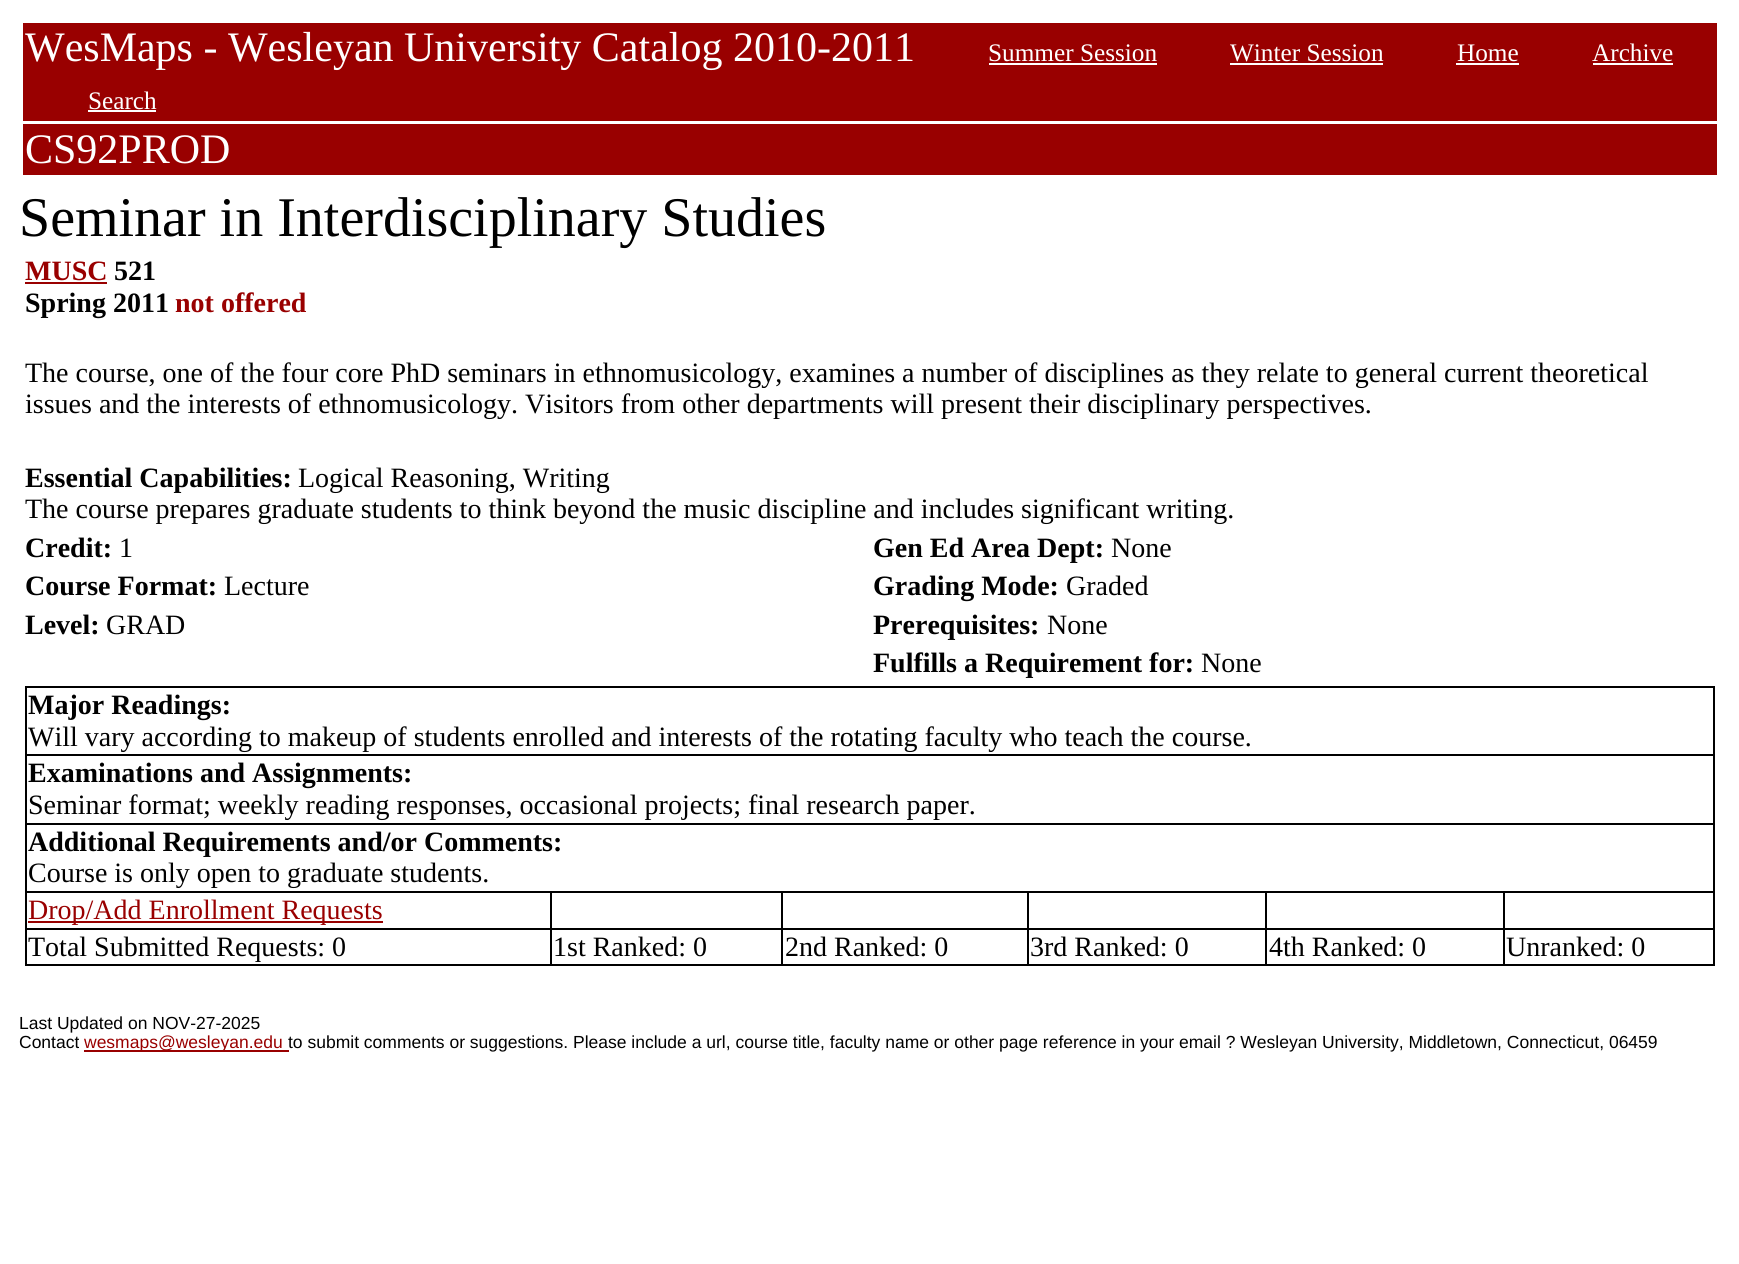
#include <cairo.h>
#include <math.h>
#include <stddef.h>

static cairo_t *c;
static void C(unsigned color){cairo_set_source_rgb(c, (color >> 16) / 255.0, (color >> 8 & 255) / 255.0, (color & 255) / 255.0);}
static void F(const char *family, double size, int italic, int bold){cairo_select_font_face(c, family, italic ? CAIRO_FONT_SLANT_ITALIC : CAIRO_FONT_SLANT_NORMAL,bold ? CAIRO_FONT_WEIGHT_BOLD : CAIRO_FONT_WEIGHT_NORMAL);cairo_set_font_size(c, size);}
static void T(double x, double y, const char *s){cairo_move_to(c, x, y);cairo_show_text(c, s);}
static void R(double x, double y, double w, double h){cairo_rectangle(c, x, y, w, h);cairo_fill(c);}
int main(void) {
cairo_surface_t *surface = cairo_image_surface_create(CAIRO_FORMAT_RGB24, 1739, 1264);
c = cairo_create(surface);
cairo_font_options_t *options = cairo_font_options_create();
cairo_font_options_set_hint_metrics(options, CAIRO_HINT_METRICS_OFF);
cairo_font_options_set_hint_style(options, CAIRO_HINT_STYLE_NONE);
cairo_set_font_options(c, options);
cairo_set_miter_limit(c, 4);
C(0xffffff);
cairo_paint(c);
C(0x990000);
R(23,23,1694,98);
F("Liberation Serif",42,0,0);
C(0xffffff);
T(25,61,"WesMaps - Wesleyan University Catalog 2010-2011");
F("Liberation Serif",25.25,0,0);
T(988,61,"Summer Session");
R(989,63,168,2);
T(1230,61,"Winter Session");
R(1230,63,153,2);
T(1457,61,"Home");
R(1456,63,63,2);
T(1592,61,"Archive");
R(1593,63,80,2);
T(88,109,"Search");
R(88,110,68,2);
C(0x990000);
R(23,124,1694,51);
F("Liberation Serif",42,0,0);
C(0xffffff);
T(25,163,"CS92PROD");
F("Liberation Serif",56,0,0);
C(0x000000);
T(19,236,"Seminar in Interdisciplinary Studies");
F("Liberation Serif",28,0,1);
C(0x990000);
T(25,280,"MUSC");
R(25,282,82,2);
C(0x000000);
T(114,280,"521");
T(25,312,"Spring 2011");
C(0x990000);
T(175,312,"not offered");
F("Liberation Serif",28,0,0);
C(0x000000);
T(25,382,"The course, one of the four core PhD seminars in ethnomusicology, examines a number of disciplines as they relate to general current theoretical");
T(25,413,"issues and the interests of ethnomusicology. Visitors from other departments will present their disciplinary perspectives.");
F("Liberation Serif",28,0,1);
T(25,487,"Essential Capabilities:");
F("Liberation Serif",28,0,0);
T(298,487,"Logical Reasoning, Writing");
T(25,518,"The course prepares graduate students to think beyond the music discipline and includes significant writing.");
F("Liberation Serif",28,0,1);
T(25,557,"Credit:");
F("Liberation Serif",28,0,0);
T(119,557,"1");
F("Liberation Serif",28,0,1);
T(873,557,"Gen Ed Area Dept:");
F("Liberation Serif",28,0,0);
T(1111,557,"None");
F("Liberation Serif",28,0,1);
T(25,595,"Course Format:");
F("Liberation Serif",28,0,0);
T(224,595,"Lecture");
F("Liberation Serif",28,0,1);
T(873,595,"Grading Mode:");
F("Liberation Serif",28,0,0);
T(1066,595,"Graded");
F("Liberation Serif",28,0,1);
T(25,634,"Level:");
F("Liberation Serif",28,0,0);
T(106,634,"GRAD");
F("Liberation Serif",28,0,1);
T(873,634,"Prerequisites:");
F("Liberation Serif",28,0,0);
T(1047,634,"None");
F("Liberation Serif",28,0,1);
T(873,672,"Fulfills a Requirement for:");
F("Liberation Serif",28,0,0);
T(1201,672,"None");
R(25,686,1690,2);
R(1713,686,2,280);
R(25,964,1690,2);
R(25,686,2,280);
F("Liberation Serif",28,0,1);
T(28,714,"Major Readings:");
F("Liberation Serif",28,0,0);
T(28,746,"Will vary according to makeup of students enrolled and interests of the rotating faculty who teach the course.");
R(25,754,1690,2);
F("Liberation Serif",28,0,1);
T(28,782,"Examinations and Assignments:");
F("Liberation Serif",28,0,0);
T(28,814,"Seminar format; weekly reading responses, occasional projects; final research paper.");
R(25,823,1690,2);
F("Liberation Serif",28,0,1);
T(28,851,"Additional Requirements and/or Comments:");
F("Liberation Serif",28,0,0);
T(28,882,"Course is only open to graduate students.");
R(1503,891,212,2);
R(1503,928,212,2);
R(1503,928,2,38);
R(1265,928,240,2);
R(1503,891,2,38);
R(1265,891,240,2);
R(1265,928,2,38);
R(1027,928,240,2);
R(1265,891,2,38);
R(1027,891,240,2);
R(1027,928,2,38);
R(781,928,248,2);
R(1027,891,2,38);
R(781,891,248,2);
R(781,928,2,38);
R(550,928,232,2);
R(781,891,2,38);
R(550,891,232,2);
R(550,928,2,38);
R(25,928,526,2);
R(550,891,2,38);
R(25,891,526,2);
C(0x990000);
R(28,921,355,2);
T(28,919,"Drop/Add Enrollment Requests");
C(0x000000);
T(28,956,"Total Submitted Requests: 0");
T(553,956,"1st Ranked: 0");
T(785,956,"2nd Ranked: 0");
T(1030,956,"3rd Ranked: 0");
T(1269,956,"4th Ranked: 0");
T(1506,956,"Unranked: 0");
F("Liberation Sans",17.5,0,0);
T(19,1029,"Last Updated on NOV-27-2025");
T(19,1048,"Contact");
C(0x990000);
R(84,1050,205,2);
T(84,1048,"wesmaps@wesleyan.edu");
C(0x000000);
T(288,1048,"to submit comments or suggestions. Please include a url, course title, faculty name or other page reference in your email ? Wesleyan University, Middletown, Connecticut, 06459");
cairo_surface_write_to_png(surface, "o.png");
cairo_font_options_destroy(options);
cairo_destroy(c);
cairo_surface_destroy(surface);
return 0;
}
